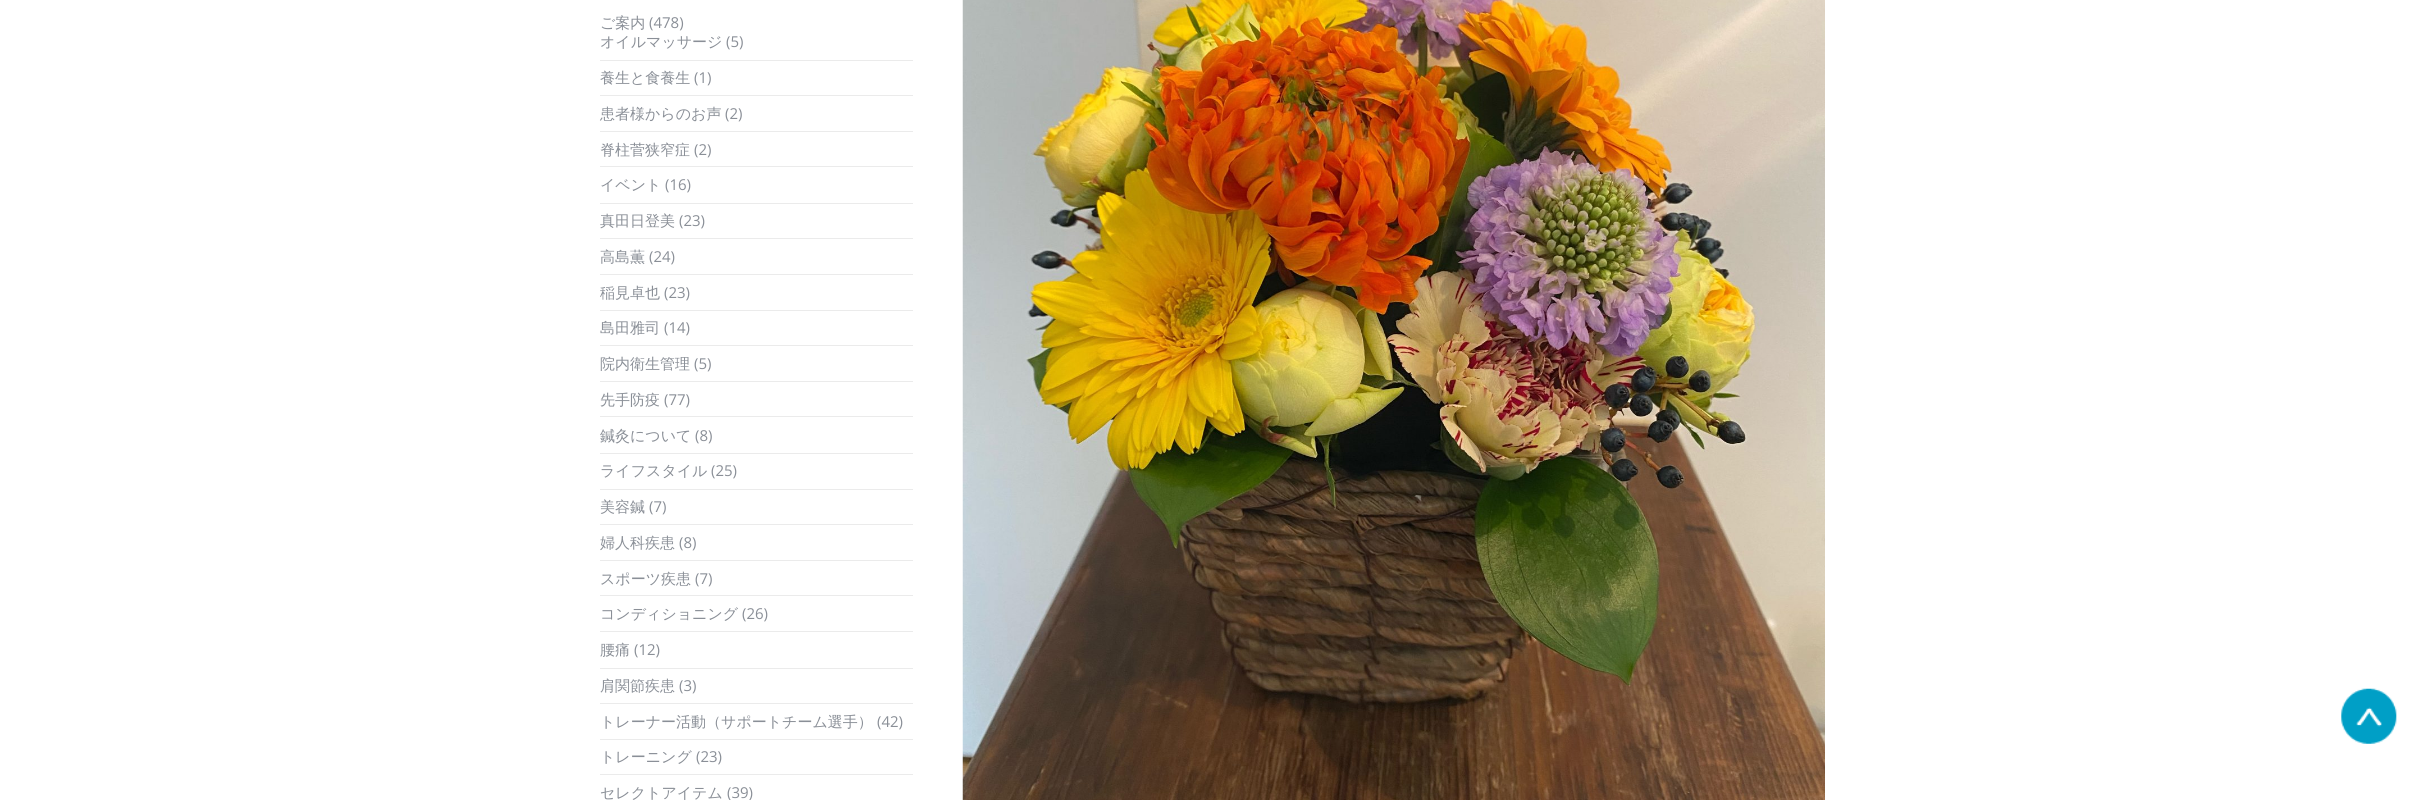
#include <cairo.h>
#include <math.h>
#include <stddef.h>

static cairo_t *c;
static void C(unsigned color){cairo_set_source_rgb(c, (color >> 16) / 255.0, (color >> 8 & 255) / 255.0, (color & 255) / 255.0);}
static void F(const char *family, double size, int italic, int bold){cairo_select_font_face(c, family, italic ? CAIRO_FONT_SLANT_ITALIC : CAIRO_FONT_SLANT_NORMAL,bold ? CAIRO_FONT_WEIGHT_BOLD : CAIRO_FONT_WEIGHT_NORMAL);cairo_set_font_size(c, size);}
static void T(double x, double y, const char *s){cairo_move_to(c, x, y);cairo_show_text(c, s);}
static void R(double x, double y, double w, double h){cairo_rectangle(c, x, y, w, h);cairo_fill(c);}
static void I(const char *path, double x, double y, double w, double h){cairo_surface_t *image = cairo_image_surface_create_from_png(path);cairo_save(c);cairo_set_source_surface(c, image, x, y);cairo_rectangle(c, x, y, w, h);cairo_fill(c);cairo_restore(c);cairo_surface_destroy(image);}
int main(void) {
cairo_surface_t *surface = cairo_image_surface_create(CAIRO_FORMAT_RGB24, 2425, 800);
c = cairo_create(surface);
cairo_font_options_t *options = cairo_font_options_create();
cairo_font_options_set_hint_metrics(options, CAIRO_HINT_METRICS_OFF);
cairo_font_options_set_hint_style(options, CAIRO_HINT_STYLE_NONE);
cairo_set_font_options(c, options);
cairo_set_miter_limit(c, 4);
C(0xffffff);
cairo_paint(c);
F("WenQuanYi Zen Hei Medium",15,0,0);
C(0x8a8f97);
T(600,28,"ご案内");
F("Open Sans",15,0,0);
T(649,28,"(478)");
C(0xebebeb);
R(600,60,313,1);
F("WenQuanYi Zen Hei Medium",15,0,0);
C(0x8a8f97);
T(600,47,"オイルマッサージ");
F("Open Sans",15,0,0);
T(726,47,"(5)");
C(0xebebeb);
R(600,95,313,1);
F("WenQuanYi Zen Hei Medium",15,0,0);
C(0x8a8f97);
T(600,83,"養生と食養生");
F("Open Sans",15,0,0);
T(694,83,"(1)");
C(0xebebeb);
R(600,131,313,1);
F("WenQuanYi Zen Hei Medium",15,0,0);
C(0x8a8f97);
T(600,119,"患者様からのお声");
F("Open Sans",15,0,0);
T(725,119,"(2)");
C(0xebebeb);
R(600,166,313,1);
F("WenQuanYi Zen Hei Medium",15,0,0);
C(0x8a8f97);
T(600,155,"脊柱菅狭窄症");
F("Open Sans",15,0,0);
T(694,155,"(2)");
C(0xebebeb);
R(600,203,313,1);
F("WenQuanYi Zen Hei Medium",15,0,0);
C(0x8a8f97);
T(600,190,"イベント");
F("Open Sans",15,0,0);
T(665,190,"(16)");
C(0xebebeb);
R(600,238,313,1);
F("WenQuanYi Zen Hei Medium",15,0,0);
C(0x8a8f97);
T(600,226,"真田日登美");
F("Open Sans",15,0,0);
T(679,226,"(23)");
C(0xebebeb);
R(600,274,313,1);
F("WenQuanYi Zen Hei Medium",15,0,0);
C(0x8a8f97);
T(600,262,"高島薫");
F("Open Sans",15,0,0);
T(649,262,"(24)");
C(0xebebeb);
R(600,310,313,1);
F("WenQuanYi Zen Hei Medium",15,0,0);
C(0x8a8f97);
T(600,298,"稲見卓也");
F("Open Sans",15,0,0);
T(664,298,"(23)");
C(0xebebeb);
R(600,345,313,1);
F("WenQuanYi Zen Hei Medium",15,0,0);
C(0x8a8f97);
T(600,333,"島田雅司");
F("Open Sans",15,0,0);
T(664,333,"(14)");
C(0xebebeb);
R(600,381,313,1);
F("WenQuanYi Zen Hei Medium",15,0,0);
C(0x8a8f97);
T(600,369,"院内衛生管理");
F("Open Sans",15,0,0);
T(694,369,"(5)");
C(0xebebeb);
R(600,416,313,1);
F("WenQuanYi Zen Hei Medium",15,0,0);
C(0x8a8f97);
T(600,405,"先手防疫");
F("Open Sans",15,0,0);
T(664,405,"(77)");
C(0xebebeb);
R(600,453,313,1);
F("WenQuanYi Zen Hei Medium",15,0,0);
C(0x8a8f97);
T(600,441,"鍼灸について");
F("Open Sans",15,0,0);
T(695,441,"(8)");
C(0xebebeb);
R(600,489,313,1);
F("WenQuanYi Zen Hei Medium",15,0,0);
C(0x8a8f97);
T(600,476,"ライフスタイル");
F("Open Sans",15,0,0);
T(711,476,"(25)");
C(0xebebeb);
R(600,524,313,1);
F("WenQuanYi Zen Hei Medium",15,0,0);
C(0x8a8f97);
T(600,512,"美容鍼");
F("Open Sans",15,0,0);
T(649,512,"(7)");
C(0xebebeb);
R(600,560,313,1);
F("WenQuanYi Zen Hei Medium",15,0,0);
C(0x8a8f97);
T(600,548,"婦人科疾患");
F("Open Sans",15,0,0);
T(679,548,"(8)");
C(0xebebeb);
R(600,595,313,1);
F("WenQuanYi Zen Hei Medium",15,0,0);
C(0x8a8f97);
T(600,584,"スポーツ疾患");
F("Open Sans",15,0,0);
T(695,584,"(7)");
C(0xebebeb);
R(600,631,313,1);
F("WenQuanYi Zen Hei Medium",15,0,0);
C(0x8a8f97);
T(600,619,"コンディショニング");
F("Open Sans",15,0,0);
T(742,619,"(26)");
C(0xebebeb);
R(600,668,313,1);
F("WenQuanYi Zen Hei Medium",15,0,0);
C(0x8a8f97);
T(600,655,"腰痛");
F("Open Sans",15,0,0);
T(634,655,"(12)");
C(0xebebeb);
R(600,703,313,1);
F("WenQuanYi Zen Hei Medium",15,0,0);
C(0x8a8f97);
T(600,691,"肩関節疾患");
F("Open Sans",15,0,0);
T(679,691,"(3)");
C(0xebebeb);
R(600,739,313,1);
F("WenQuanYi Zen Hei Medium",15,0,0);
C(0x8a8f97);
T(600,727,"トレーナー活動（サポートチーム選手）");
F("Open Sans",15,0,0);
T(877,727,"(42)");
C(0xebebeb);
R(600,774,313,1);
F("WenQuanYi Zen Hei Medium",15,0,0);
C(0x8a8f97);
T(600,762,"トレーニング");
F("Open Sans",15,0,0);
T(696,762,"(23)");
F("WenQuanYi Zen Hei Medium",15,0,0);
T(600,798,"セレクトアイテム");
F("Open Sans",15,0,0);
T(727,798,"(39)");
I("1.png",962,0,863,800);
I("2.png",2341,688,56,56);
cairo_surface_write_to_png(surface, "o.png");
cairo_font_options_destroy(options);
cairo_destroy(c);
cairo_surface_destroy(surface);
return 0;
}
